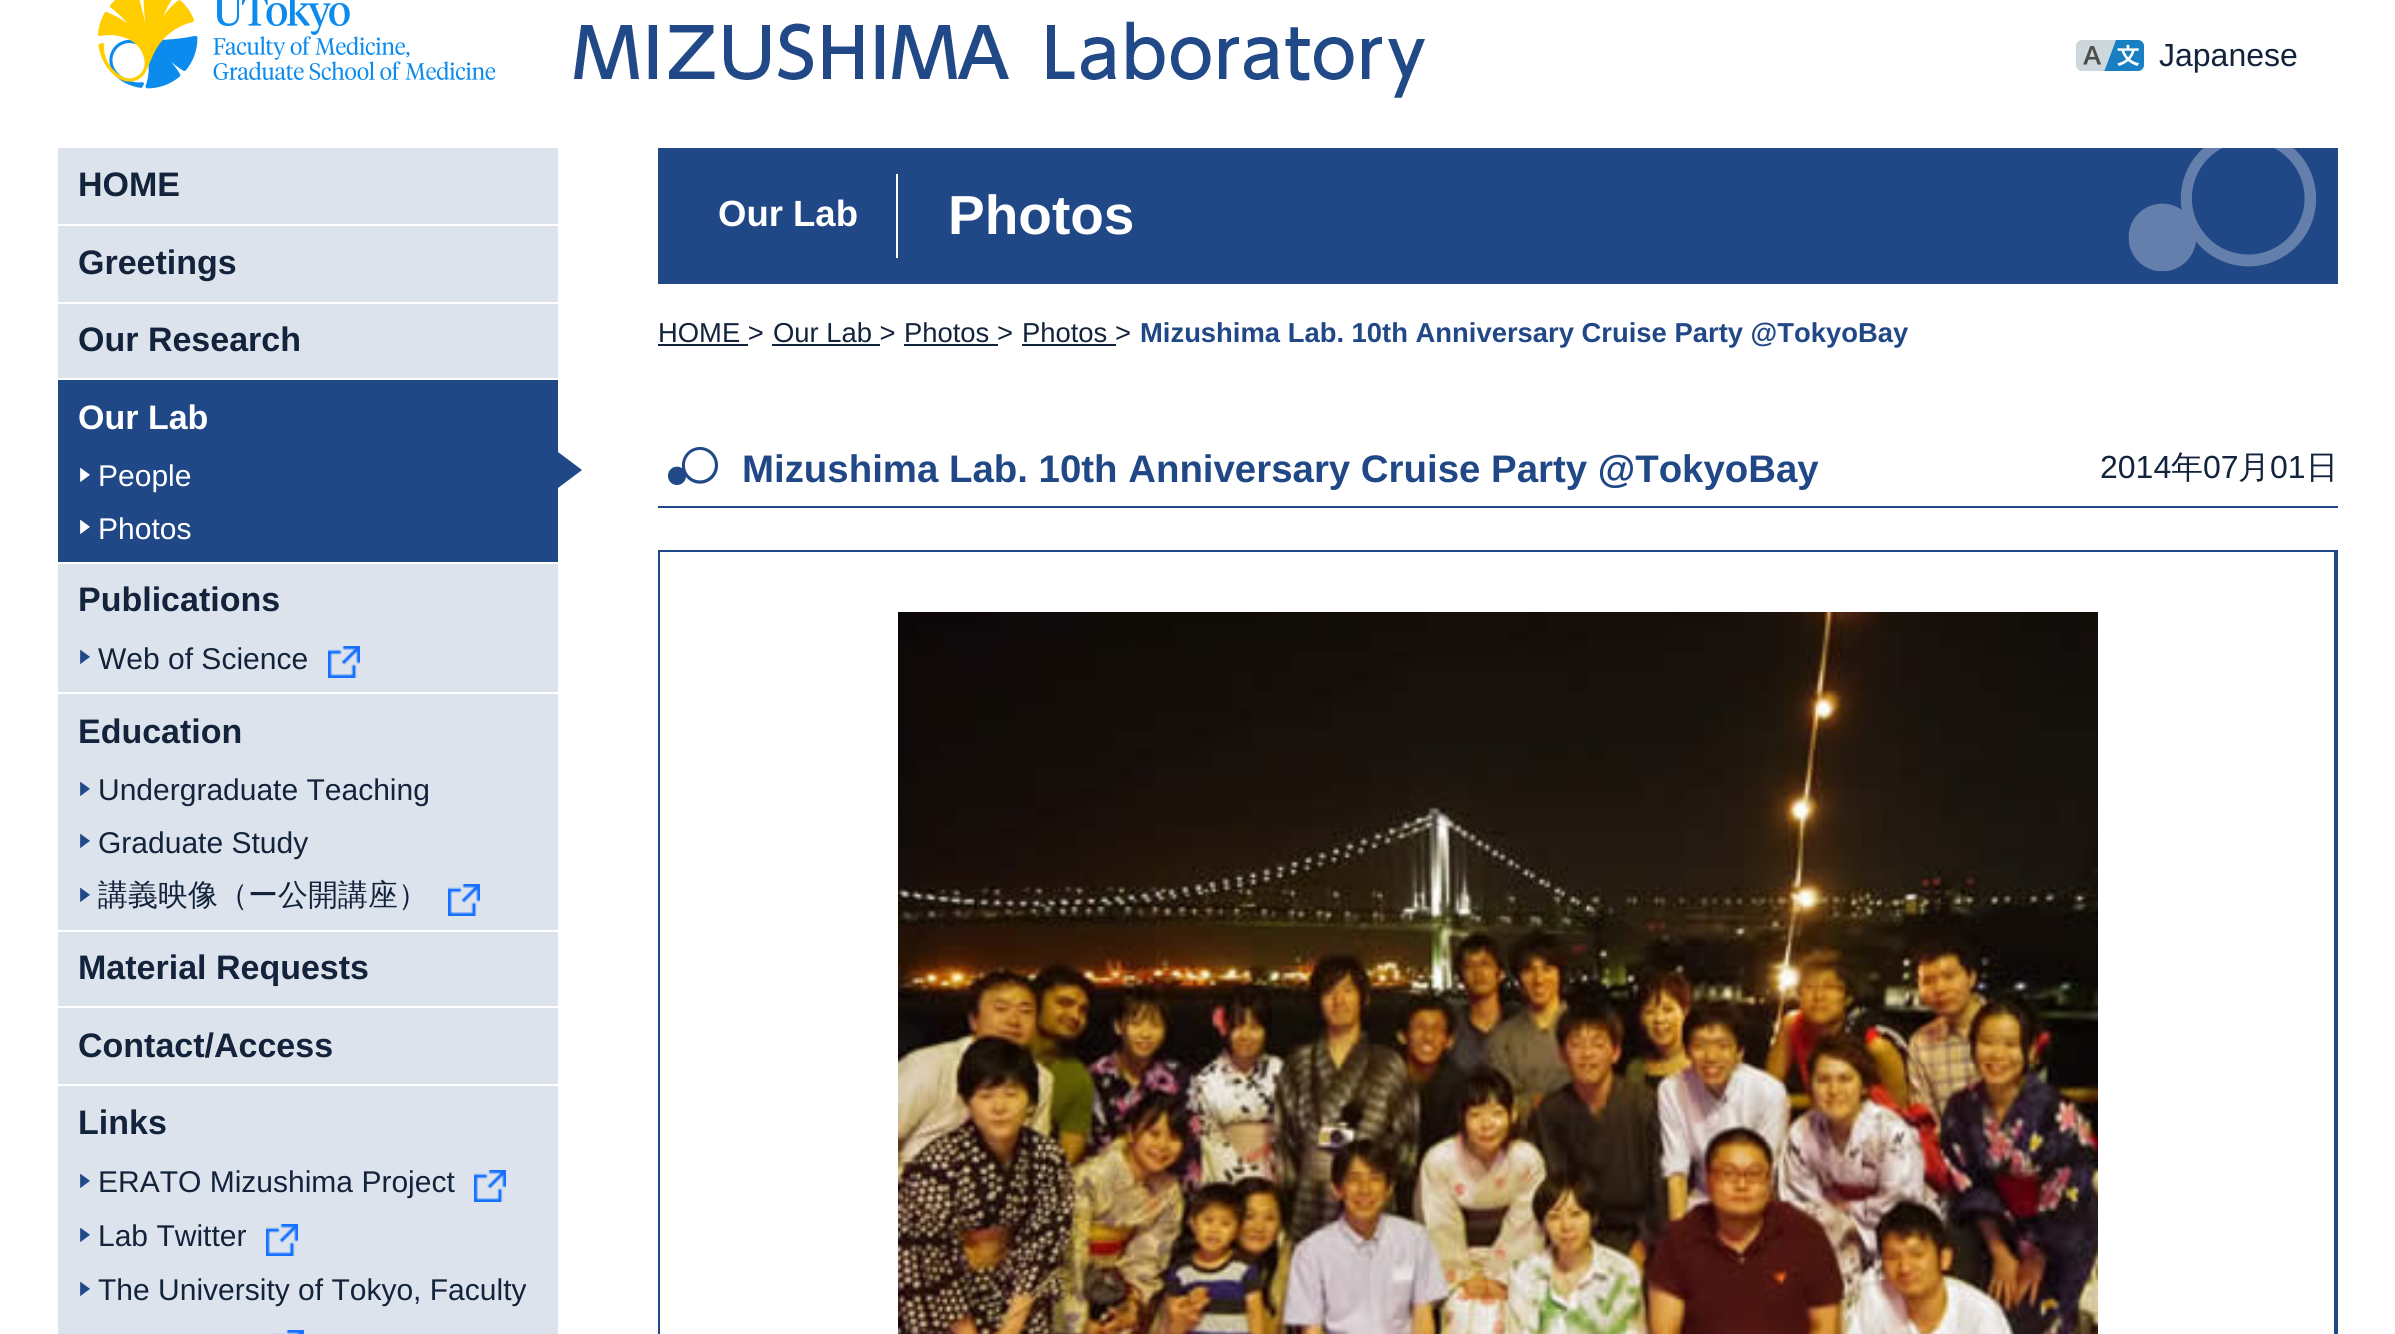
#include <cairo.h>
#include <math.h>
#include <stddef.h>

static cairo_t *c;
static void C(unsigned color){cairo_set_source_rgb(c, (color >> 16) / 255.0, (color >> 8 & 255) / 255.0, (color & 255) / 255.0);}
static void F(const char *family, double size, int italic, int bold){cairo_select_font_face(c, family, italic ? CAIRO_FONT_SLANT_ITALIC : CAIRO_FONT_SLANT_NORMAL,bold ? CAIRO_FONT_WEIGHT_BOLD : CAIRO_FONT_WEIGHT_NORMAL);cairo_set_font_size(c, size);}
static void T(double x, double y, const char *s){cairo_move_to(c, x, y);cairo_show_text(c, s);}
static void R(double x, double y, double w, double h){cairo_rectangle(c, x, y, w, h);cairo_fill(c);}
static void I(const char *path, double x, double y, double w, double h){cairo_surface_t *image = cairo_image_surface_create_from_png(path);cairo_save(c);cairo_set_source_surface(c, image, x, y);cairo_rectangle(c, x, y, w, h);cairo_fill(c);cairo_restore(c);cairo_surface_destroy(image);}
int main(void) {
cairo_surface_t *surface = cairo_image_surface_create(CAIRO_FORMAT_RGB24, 2395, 1334);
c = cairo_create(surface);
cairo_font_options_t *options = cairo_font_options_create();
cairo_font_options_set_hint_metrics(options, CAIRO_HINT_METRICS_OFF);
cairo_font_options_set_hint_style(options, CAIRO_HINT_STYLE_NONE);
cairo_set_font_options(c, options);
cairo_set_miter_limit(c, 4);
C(0xffffff);
cairo_paint(c);
I("1.png",98,0,1327,98);
I("2.png",2076,40,68,31);
F("Liberation Sans",32,0,0);
C(0x13233b);
T(2159,66,"Japanese");
C(0xdde3ec);
R(58,148,500,1186);
C(0xffffff);
R(58,224,500,2);
F("Liberation Sans",34,0,1);
C(0x13233b);
T(78,196,"HOME");
C(0xffffff);
R(58,302,500,2);
C(0x13233b);
T(78,274,"Greetings");
C(0xffffff);
R(58,378,500,2);
C(0x13233b);
T(78,351,"Our Research");
C(0x214886);
R(58,380,500,182);
C(0xffffff);
R(58,562,500,2);
T(78,429,"Our Lab");
I("3.png",80,468,10,14);
F("Liberation Sans",30,0,0);
T(98,486,"People");
I("3.png",80,520,10,14);
T(98,539,"Photos");
C(0x214886);
cairo_new_path(c);
cairo_move_to(c,558,488);
cairo_line_to(c,558,452);
cairo_line_to(c,582,470);
cairo_close_path(c);
cairo_fill(c);
C(0xffffff);
R(58,692,500,2);
F("Liberation Sans",34,0,1);
C(0x13233b);
T(78,611,"Publications");
I("4.png",80,650,10,14);
F("Liberation Sans",30,0,0);
T(98,669,"Web of Science");
I("5.png",328,646,32,32);
C(0xffffff);
R(58,930,500,2);
F("Liberation Sans",34,0,1);
C(0x13233b);
T(78,743,"Education");
I("4.png",80,782,10,14);
F("Liberation Sans",30,0,0);
T(98,800,"Undergraduate Teaching");
I("4.png",80,834,10,14);
T(98,853,"Graduate Study");
I("4.png",80,888,10,14);
F("WenQuanYi Zen Hei Medium",30,0,0);
T(98,905,"講義映像（ー公開講座）");
I("5.png",448,884,32,32);
C(0xffffff);
R(58,1006,500,2);
F("Liberation Sans",34,0,1);
C(0x13233b);
T(78,979,"Material Requests");
C(0xffffff);
R(58,1084,500,2);
C(0x13233b);
T(78,1057,"Contact/Access");
T(78,1134,"Links");
I("4.png",80,1174,10,14);
F("Liberation Sans",30,0,0);
T(98,1192,"ERATO Mizushima Project");
I("5.png",474,1170,32,32);
I("4.png",80,1228,10,14);
T(98,1246,"Lab Twitter");
I("5.png",266,1224,32,32);
I("4.png",80,1282,10,14);
T(98,1300,"The University of Tokyo, Faculty");
I("6.png",272,1330,32,4);
C(0x214886);
R(658,148,1680,136);
I("7.png",2128,148,188,124);
C(0xffffff);
R(896,174,2,84);
F("Liberation Sans",36.5,0,1);
T(718,226,"Our Lab");
F("Liberation Sans",55,0,1);
T(948,234,"Photos");
F("Liberation Sans",27.4,0,0);
C(0x13233b);
T(658,342,"HOME >");
R(658,344,90,2);
T(773,342,"Our Lab >");
R(772,344,108,2);
T(904,342,"Photos >");
R(904,344,94,2);
T(1022,342,"Photos >");
R(1022,344,94,2);
F("Liberation Sans",27.4,0,1);
C(0x214886);
T(1140,342,"Mizushima Lab. 10th Anniversary Cruise Party @TokyoBay");
I("8.png",668,447,50,38);
R(658,506,1680,2);
F("Liberation Sans",38.4,0,1);
T(742,482,"Mizushima Lab. 10th Anniversary Cruise Party @TokyoBay");
F("Liberation Sans",32,0,0);
C(0x13233b);
T(2100,478,"2014");
F("WenQuanYi Zen Hei Medium",32,0,0);
T(2171,478,"年");
F("Liberation Sans",32,0,0);
T(2203,478,"07");
F("WenQuanYi Zen Hei Medium",32,0,0);
T(2238,478,"月");
F("Liberation Sans",32,0,0);
T(2270,478,"01");
F("WenQuanYi Zen Hei Medium",32,0,0);
T(2306,478,"日");
C(0x214886);
R(658,550,1680,2);
R(2334,550,4,784);
R(658,550,2,784);
I("9.png",898,612,1200,722);
cairo_surface_write_to_png(surface, "o.png");
cairo_font_options_destroy(options);
cairo_destroy(c);
cairo_surface_destroy(surface);
return 0;
}
